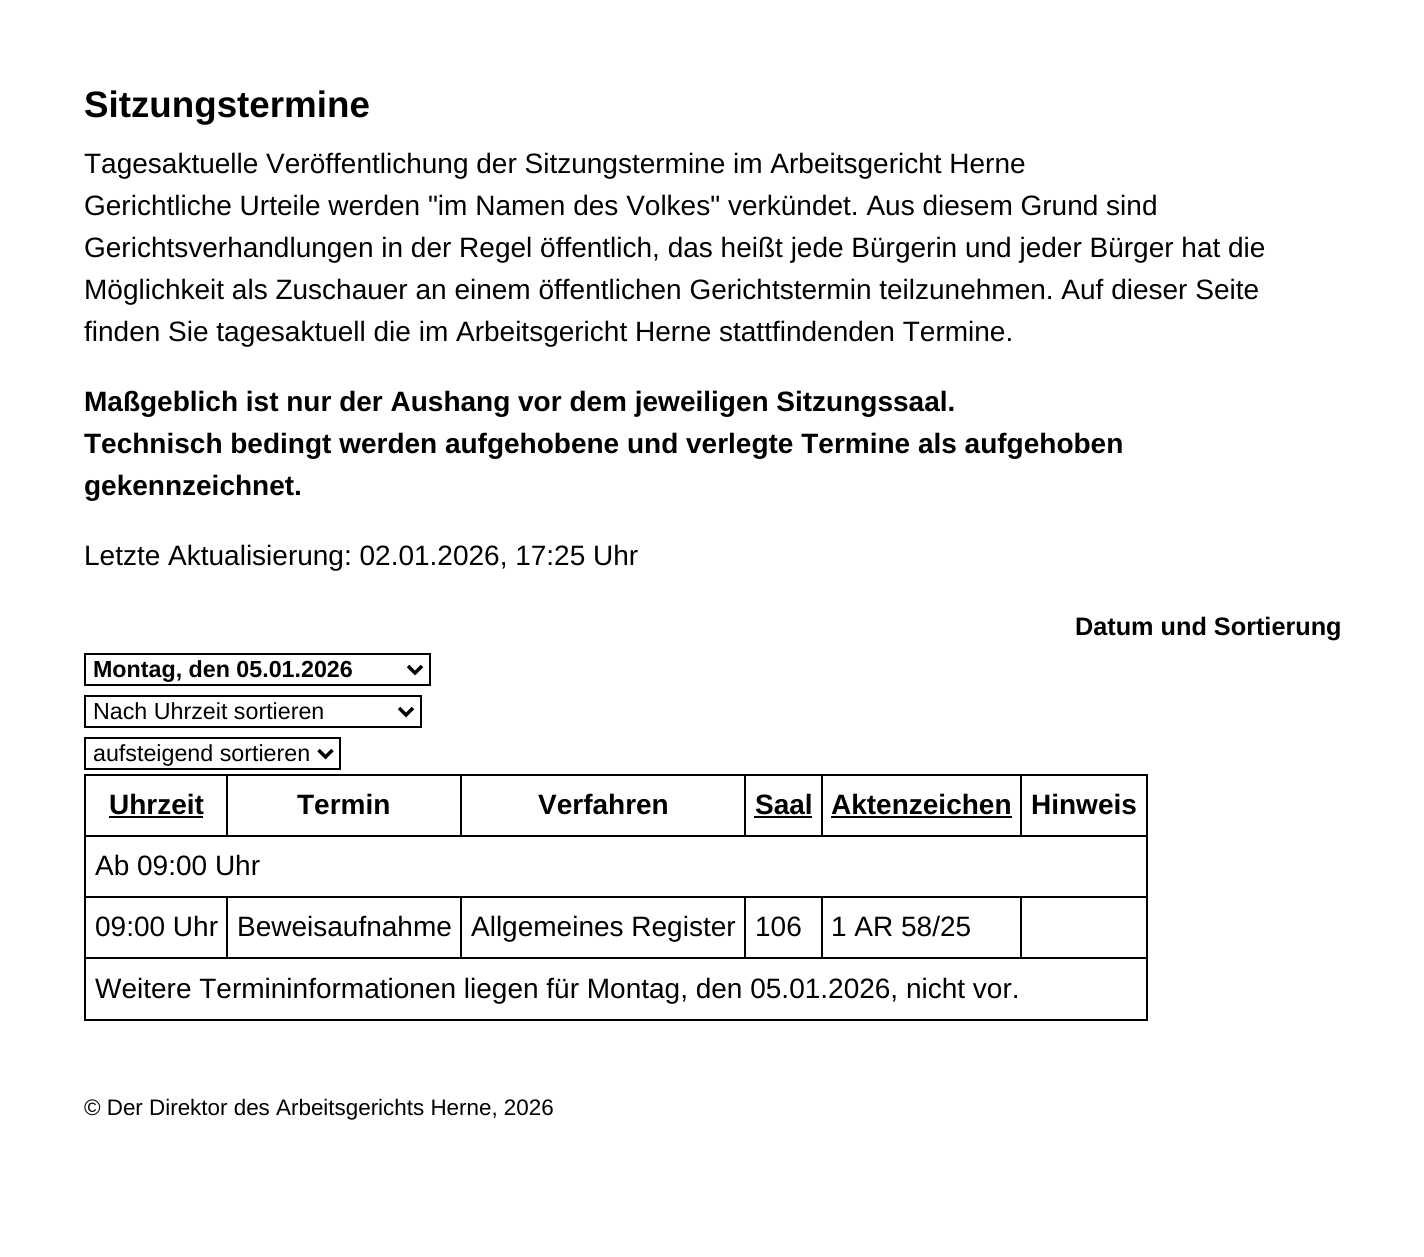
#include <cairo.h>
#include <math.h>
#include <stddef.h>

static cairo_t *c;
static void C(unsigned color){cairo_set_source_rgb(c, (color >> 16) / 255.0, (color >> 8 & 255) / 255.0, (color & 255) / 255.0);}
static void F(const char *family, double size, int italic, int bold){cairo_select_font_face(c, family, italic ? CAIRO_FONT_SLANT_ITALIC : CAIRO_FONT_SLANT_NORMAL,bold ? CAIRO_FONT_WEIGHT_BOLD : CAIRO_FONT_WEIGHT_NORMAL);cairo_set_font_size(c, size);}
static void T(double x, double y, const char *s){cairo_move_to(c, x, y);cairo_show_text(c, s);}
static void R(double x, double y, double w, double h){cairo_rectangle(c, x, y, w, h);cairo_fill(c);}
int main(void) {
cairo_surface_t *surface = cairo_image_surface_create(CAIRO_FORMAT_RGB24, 1424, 1257);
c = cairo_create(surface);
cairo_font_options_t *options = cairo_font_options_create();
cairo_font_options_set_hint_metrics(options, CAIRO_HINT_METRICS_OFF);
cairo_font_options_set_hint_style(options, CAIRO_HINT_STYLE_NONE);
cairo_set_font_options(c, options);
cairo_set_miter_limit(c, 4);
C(0xffffff);
cairo_paint(c);
F("Liberation Sans",36.75,0,1);
C(0x000000);
T(84,117,"Sitzungstermine");
F("Liberation Sans",28,0,0);
T(84,173,"Tagesaktuelle Veröffentlichung der Sitzungstermine im Arbeitsgericht Herne");
T(84,215,"Gerichtliche Urteile werden \"im Namen des Volkes\" verkündet. Aus diesem Grund sind");
T(84,257,"Gerichtsverhandlungen in der Regel öffentlich, das heißt jede Bürgerin und jeder Bürger hat die");
T(84,299,"Möglichkeit als Zuschauer an einem öffentlichen Gerichtstermin teilzunehmen. Auf dieser Seite");
T(84,341,"finden Sie tagesaktuell die im Arbeitsgericht Herne stattfindenden Termine.");
F("Liberation Sans",28,0,1);
T(84,411,"Maßgeblich ist nur der Aushang vor dem jeweiligen Sitzungssaal.");
T(84,453,"Technisch bedingt werden aufgehobene und verlegte Termine als aufgehoben");
T(84,495,"gekennzeichnet.");
F("Liberation Sans",28,0,0);
T(84,565,"Letzte Aktualisierung: 02.01.2026, 17:25 Uhr");
F("Liberation Sans",25.25,0,1);
T(1075,635,"Datum und Sortierung");
cairo_rectangle(c,85,654,345,31);
cairo_stroke(c);
cairo_new_path(c);
cairo_move_to(c,408,666);
cairo_line_to(c,415,673);
cairo_line_to(c,422,666);
cairo_set_line_width(c,3.5);
cairo_stroke(c);
F("Liberation Sans",23.25,0,1);
T(93,677,"Montag, den 05.01.2026");
cairo_rectangle(c,85,696,336,31);
cairo_set_line_width(c,2);
cairo_stroke(c);
cairo_new_path(c);
cairo_move_to(c,399,708);
cairo_line_to(c,406,715);
cairo_line_to(c,413,708);
cairo_set_line_width(c,3.5);
cairo_stroke(c);
F("Liberation Sans",23.25,0,0);
T(93,719,"Nach Uhrzeit sortieren");
cairo_rectangle(c,85,738,255,31);
cairo_set_line_width(c,2);
cairo_stroke(c);
cairo_new_path(c);
cairo_move_to(c,318.5,750);
cairo_line_to(c,325.5,757);
cairo_line_to(c,332.5,750);
cairo_set_line_width(c,3.5);
cairo_stroke(c);
T(93,761,"aufsteigend sortieren");
R(84,774,1064,2);
R(1146,774,2,246);
R(84,1019,1064,2);
R(84,774,2,246);
F("Liberation Sans",28,0,1);
T(109,814,"Uhrzeit");
R(109,816,94,2);
R(84,835,1064,2);
R(226,774,2,63);
T(297,814,"Termin");
R(460,774,2,63);
T(538,814,"Verfahren");
R(744,774,2,63);
T(755,814,"Saal");
R(754,816,58,2);
R(821,774,2,63);
T(831,814,"Aktenzeichen");
R(831,816,181,2);
R(1020,774,2,63);
T(1031,814,"Hinweis");
F("Liberation Sans",28,0,0);
T(95,875,"Ab 09:00 Uhr");
R(1020,896,128,2);
R(84,957,1064,2);
R(1020,896,2,63);
R(821,896,201,2);
R(821,896,2,63);
R(744,896,79,2);
R(744,896,2,63);
R(460,896,286,2);
R(460,896,2,63);
R(226,896,236,2);
R(226,896,2,63);
R(84,896,144,2);
T(95,936,"09:00 Uhr");
T(237,936,"Beweisaufnahme");
T(471,936,"Allgemeines Register");
T(755,936,"106");
T(831,936,"1 AR 58/25");
T(95,998,"Weitere Termininformationen liegen für Montag, den 05.01.2026, nicht vor.");
F("Liberation Sans",22.4,0,0);
T(84,1115,"© Der Direktor des Arbeitsgerichts Herne, 2026");
cairo_surface_write_to_png(surface, "o.png");
cairo_font_options_destroy(options);
cairo_destroy(c);
cairo_surface_destroy(surface);
return 0;
}
